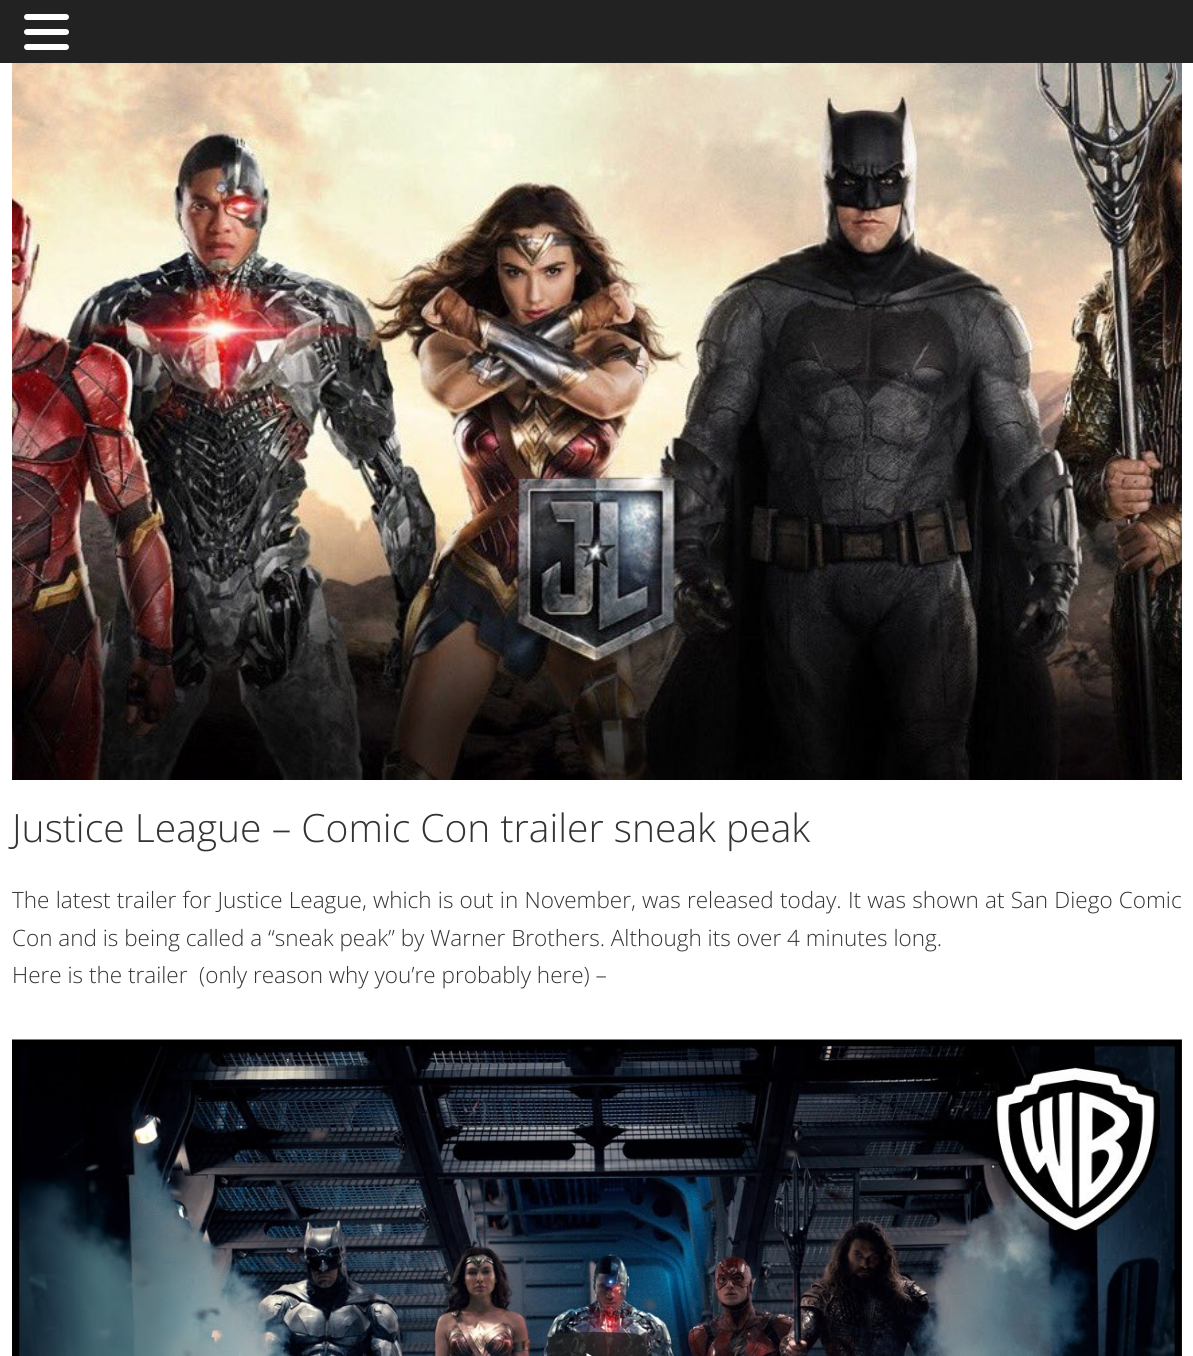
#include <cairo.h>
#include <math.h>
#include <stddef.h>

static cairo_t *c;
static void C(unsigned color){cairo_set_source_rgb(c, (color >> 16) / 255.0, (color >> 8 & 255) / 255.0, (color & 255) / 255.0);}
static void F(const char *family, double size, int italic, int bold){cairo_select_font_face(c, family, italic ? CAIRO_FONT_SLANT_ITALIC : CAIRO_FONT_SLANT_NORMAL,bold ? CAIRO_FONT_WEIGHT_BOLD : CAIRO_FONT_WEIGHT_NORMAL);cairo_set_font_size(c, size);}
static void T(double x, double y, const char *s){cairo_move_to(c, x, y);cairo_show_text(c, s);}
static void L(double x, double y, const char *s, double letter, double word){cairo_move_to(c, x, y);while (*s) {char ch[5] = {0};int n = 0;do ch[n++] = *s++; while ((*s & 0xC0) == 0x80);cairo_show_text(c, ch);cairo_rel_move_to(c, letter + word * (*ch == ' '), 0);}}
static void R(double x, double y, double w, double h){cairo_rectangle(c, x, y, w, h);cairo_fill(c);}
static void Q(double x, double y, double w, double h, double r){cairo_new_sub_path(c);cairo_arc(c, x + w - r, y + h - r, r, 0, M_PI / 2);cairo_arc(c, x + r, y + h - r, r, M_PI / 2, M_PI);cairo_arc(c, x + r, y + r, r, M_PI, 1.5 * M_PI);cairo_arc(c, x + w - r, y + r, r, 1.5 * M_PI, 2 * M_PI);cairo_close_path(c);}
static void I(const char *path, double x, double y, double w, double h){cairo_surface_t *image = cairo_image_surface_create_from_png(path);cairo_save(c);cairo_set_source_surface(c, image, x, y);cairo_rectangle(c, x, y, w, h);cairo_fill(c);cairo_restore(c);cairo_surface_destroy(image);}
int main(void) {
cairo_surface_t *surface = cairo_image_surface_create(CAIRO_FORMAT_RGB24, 1193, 1356);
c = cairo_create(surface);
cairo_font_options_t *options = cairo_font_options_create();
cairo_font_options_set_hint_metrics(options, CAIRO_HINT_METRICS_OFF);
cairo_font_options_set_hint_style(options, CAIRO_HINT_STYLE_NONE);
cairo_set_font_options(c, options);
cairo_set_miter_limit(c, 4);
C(0xffffff);
cairo_paint(c);
C(0x222222);
R(0,0,1193,63);
C(0xffffff);
Q(24,14,45,6,3);
cairo_fill(c);
Q(24,29,45,6,3);
cairo_fill(c);
Q(24,44,45,6,3);
cairo_fill(c);
I("1.png",12,63,1170,717);
F("Open Sans Light",39,0,0);
C(0x333333);
T(12,842,"Justice League – Comic Con trailer sneak peak");
F("Open Sans Light",22.5,0,0);
L(12,908,"The latest trailer for Justice League, which is out in November, was released today. It was shown at San Diego Comic",0,.4);
T(12,946,"Con and is being called a “sneak peak” by Warner Brothers. Although its over 4 minutes long.");
T(12,983,"Here is the trailer  (only reason why you’re probably here) –");
I("2.png",12,1039,1170,317);
I("3.png",546,1332,102,24);
cairo_surface_write_to_png(surface, "o.png");
cairo_font_options_destroy(options);
cairo_destroy(c);
cairo_surface_destroy(surface);
return 0;
}
